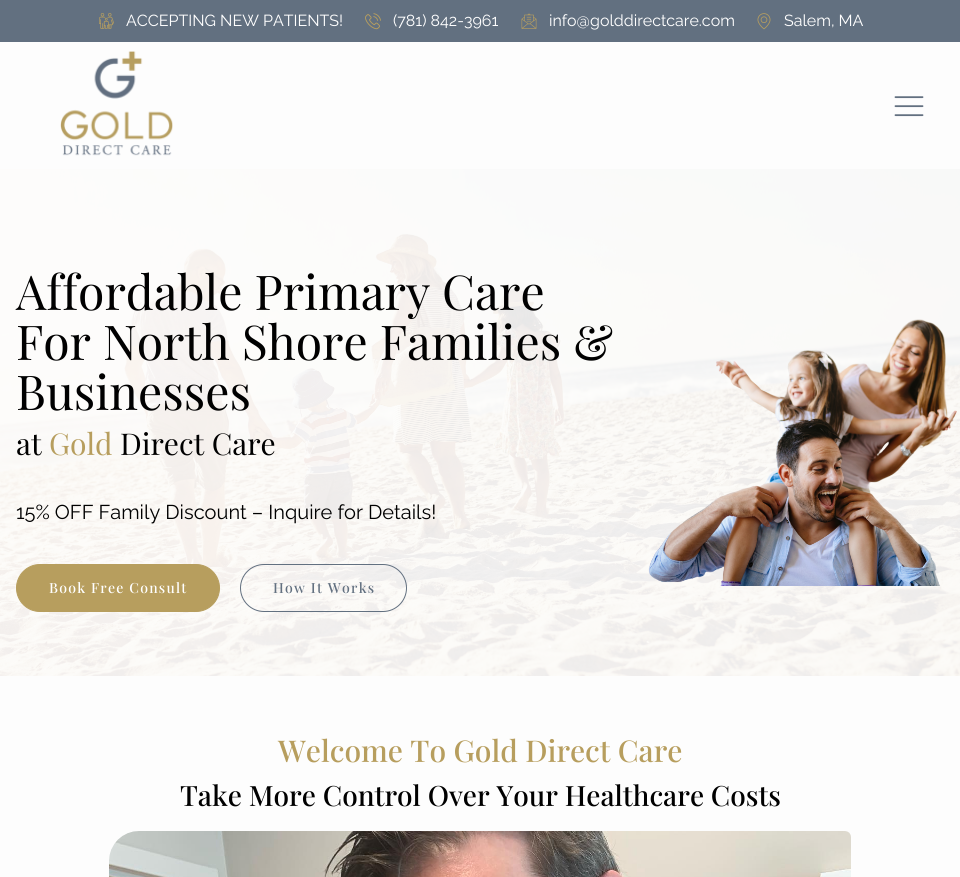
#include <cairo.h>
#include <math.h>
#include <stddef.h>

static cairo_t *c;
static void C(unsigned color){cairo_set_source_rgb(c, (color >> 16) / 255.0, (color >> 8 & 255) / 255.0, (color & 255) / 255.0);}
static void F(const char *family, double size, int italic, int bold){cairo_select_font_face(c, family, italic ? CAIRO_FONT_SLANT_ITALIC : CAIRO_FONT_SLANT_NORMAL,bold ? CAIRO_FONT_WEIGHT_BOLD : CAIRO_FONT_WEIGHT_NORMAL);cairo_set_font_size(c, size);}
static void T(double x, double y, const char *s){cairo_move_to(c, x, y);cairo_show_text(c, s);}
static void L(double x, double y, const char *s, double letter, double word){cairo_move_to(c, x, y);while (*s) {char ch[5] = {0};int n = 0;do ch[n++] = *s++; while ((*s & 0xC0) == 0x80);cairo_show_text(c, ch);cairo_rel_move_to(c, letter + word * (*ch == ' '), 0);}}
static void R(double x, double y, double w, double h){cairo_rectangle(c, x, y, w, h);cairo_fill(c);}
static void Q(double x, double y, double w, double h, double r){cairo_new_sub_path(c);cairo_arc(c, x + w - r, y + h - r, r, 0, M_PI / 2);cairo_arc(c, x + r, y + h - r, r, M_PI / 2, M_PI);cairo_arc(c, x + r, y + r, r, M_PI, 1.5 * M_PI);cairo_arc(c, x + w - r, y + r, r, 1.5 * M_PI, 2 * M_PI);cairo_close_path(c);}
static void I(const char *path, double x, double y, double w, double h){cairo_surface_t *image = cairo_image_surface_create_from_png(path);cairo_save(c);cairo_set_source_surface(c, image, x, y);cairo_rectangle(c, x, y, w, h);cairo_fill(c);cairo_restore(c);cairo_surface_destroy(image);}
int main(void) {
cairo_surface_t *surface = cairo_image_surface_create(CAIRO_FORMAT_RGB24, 960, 877);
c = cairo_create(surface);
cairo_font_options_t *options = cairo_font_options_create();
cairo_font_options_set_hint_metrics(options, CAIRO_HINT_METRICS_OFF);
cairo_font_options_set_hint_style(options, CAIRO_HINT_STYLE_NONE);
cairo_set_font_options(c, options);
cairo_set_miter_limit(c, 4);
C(0xfdfdfd);
cairo_paint(c);
C(0x627080);
R(0,0,960,42);
I("1.png",99,13,15,16);
F("Raleway",16,0,0);
C(0xffffff);
T(126,26,"ACCEPTING NEW PATIENTS!");
I("2.png",365,13,16,17);
T(393,26,"(781) 842-3961");
I("3.png",521,13,16,16);
T(549,26,"info@golddirectcare.com");
I("4.png",757,13,14,17);
T(784,26,"Salem, MA");
I("5.png",60,51,113,105);
I("6.png",894,96,30,21);
I("7.png",0,169,960,507);
F("Playfair Display",48,0,0);
C(0x000000);
T(16,310,"Affordable Primary Care");
T(16,360,"For North Shore Families &");
T(16,410,"Businesses");
F("Playfair Display",30,0,0);
T(16,455,"at");
C(0xb79e5e);
T(49,455,"Gold");
C(0x000000);
T(120,455,"Direct Care");
F("Raleway",20,0,0);
T(16,519,"15% OFF Family Discount – Inquire for Details!");
C(0xb79e5e);
Q(16.5,564.5,203,47,23.5);
cairo_fill_preserve(c);
cairo_set_line_width(c,1);
cairo_stroke(c);
F("Playfair Display Medium",14,0,0);
C(0xffffff);
L(49,593,"Book Free Consult",1.25,0);
Q(240.5,564.5,166,47,23.5);
C(0x627080);
cairo_stroke(c);
L(273,593,"How It Works",1.25,0);
I("8.png",648,319,309,267);
F("Playfair Display Medium",30,0,0);
C(0xb79e5e);
T(278,762,"Welcome To Gold Direct Care");
F("Playfair Display Medium",28,0,0);
C(0x000000);
T(180,806,"Take More Control Over Your Healthcare Costs");
I("9.png",109,831,742,46);
cairo_surface_write_to_png(surface, "o.png");
cairo_font_options_destroy(options);
cairo_destroy(c);
cairo_surface_destroy(surface);
return 0;
}
